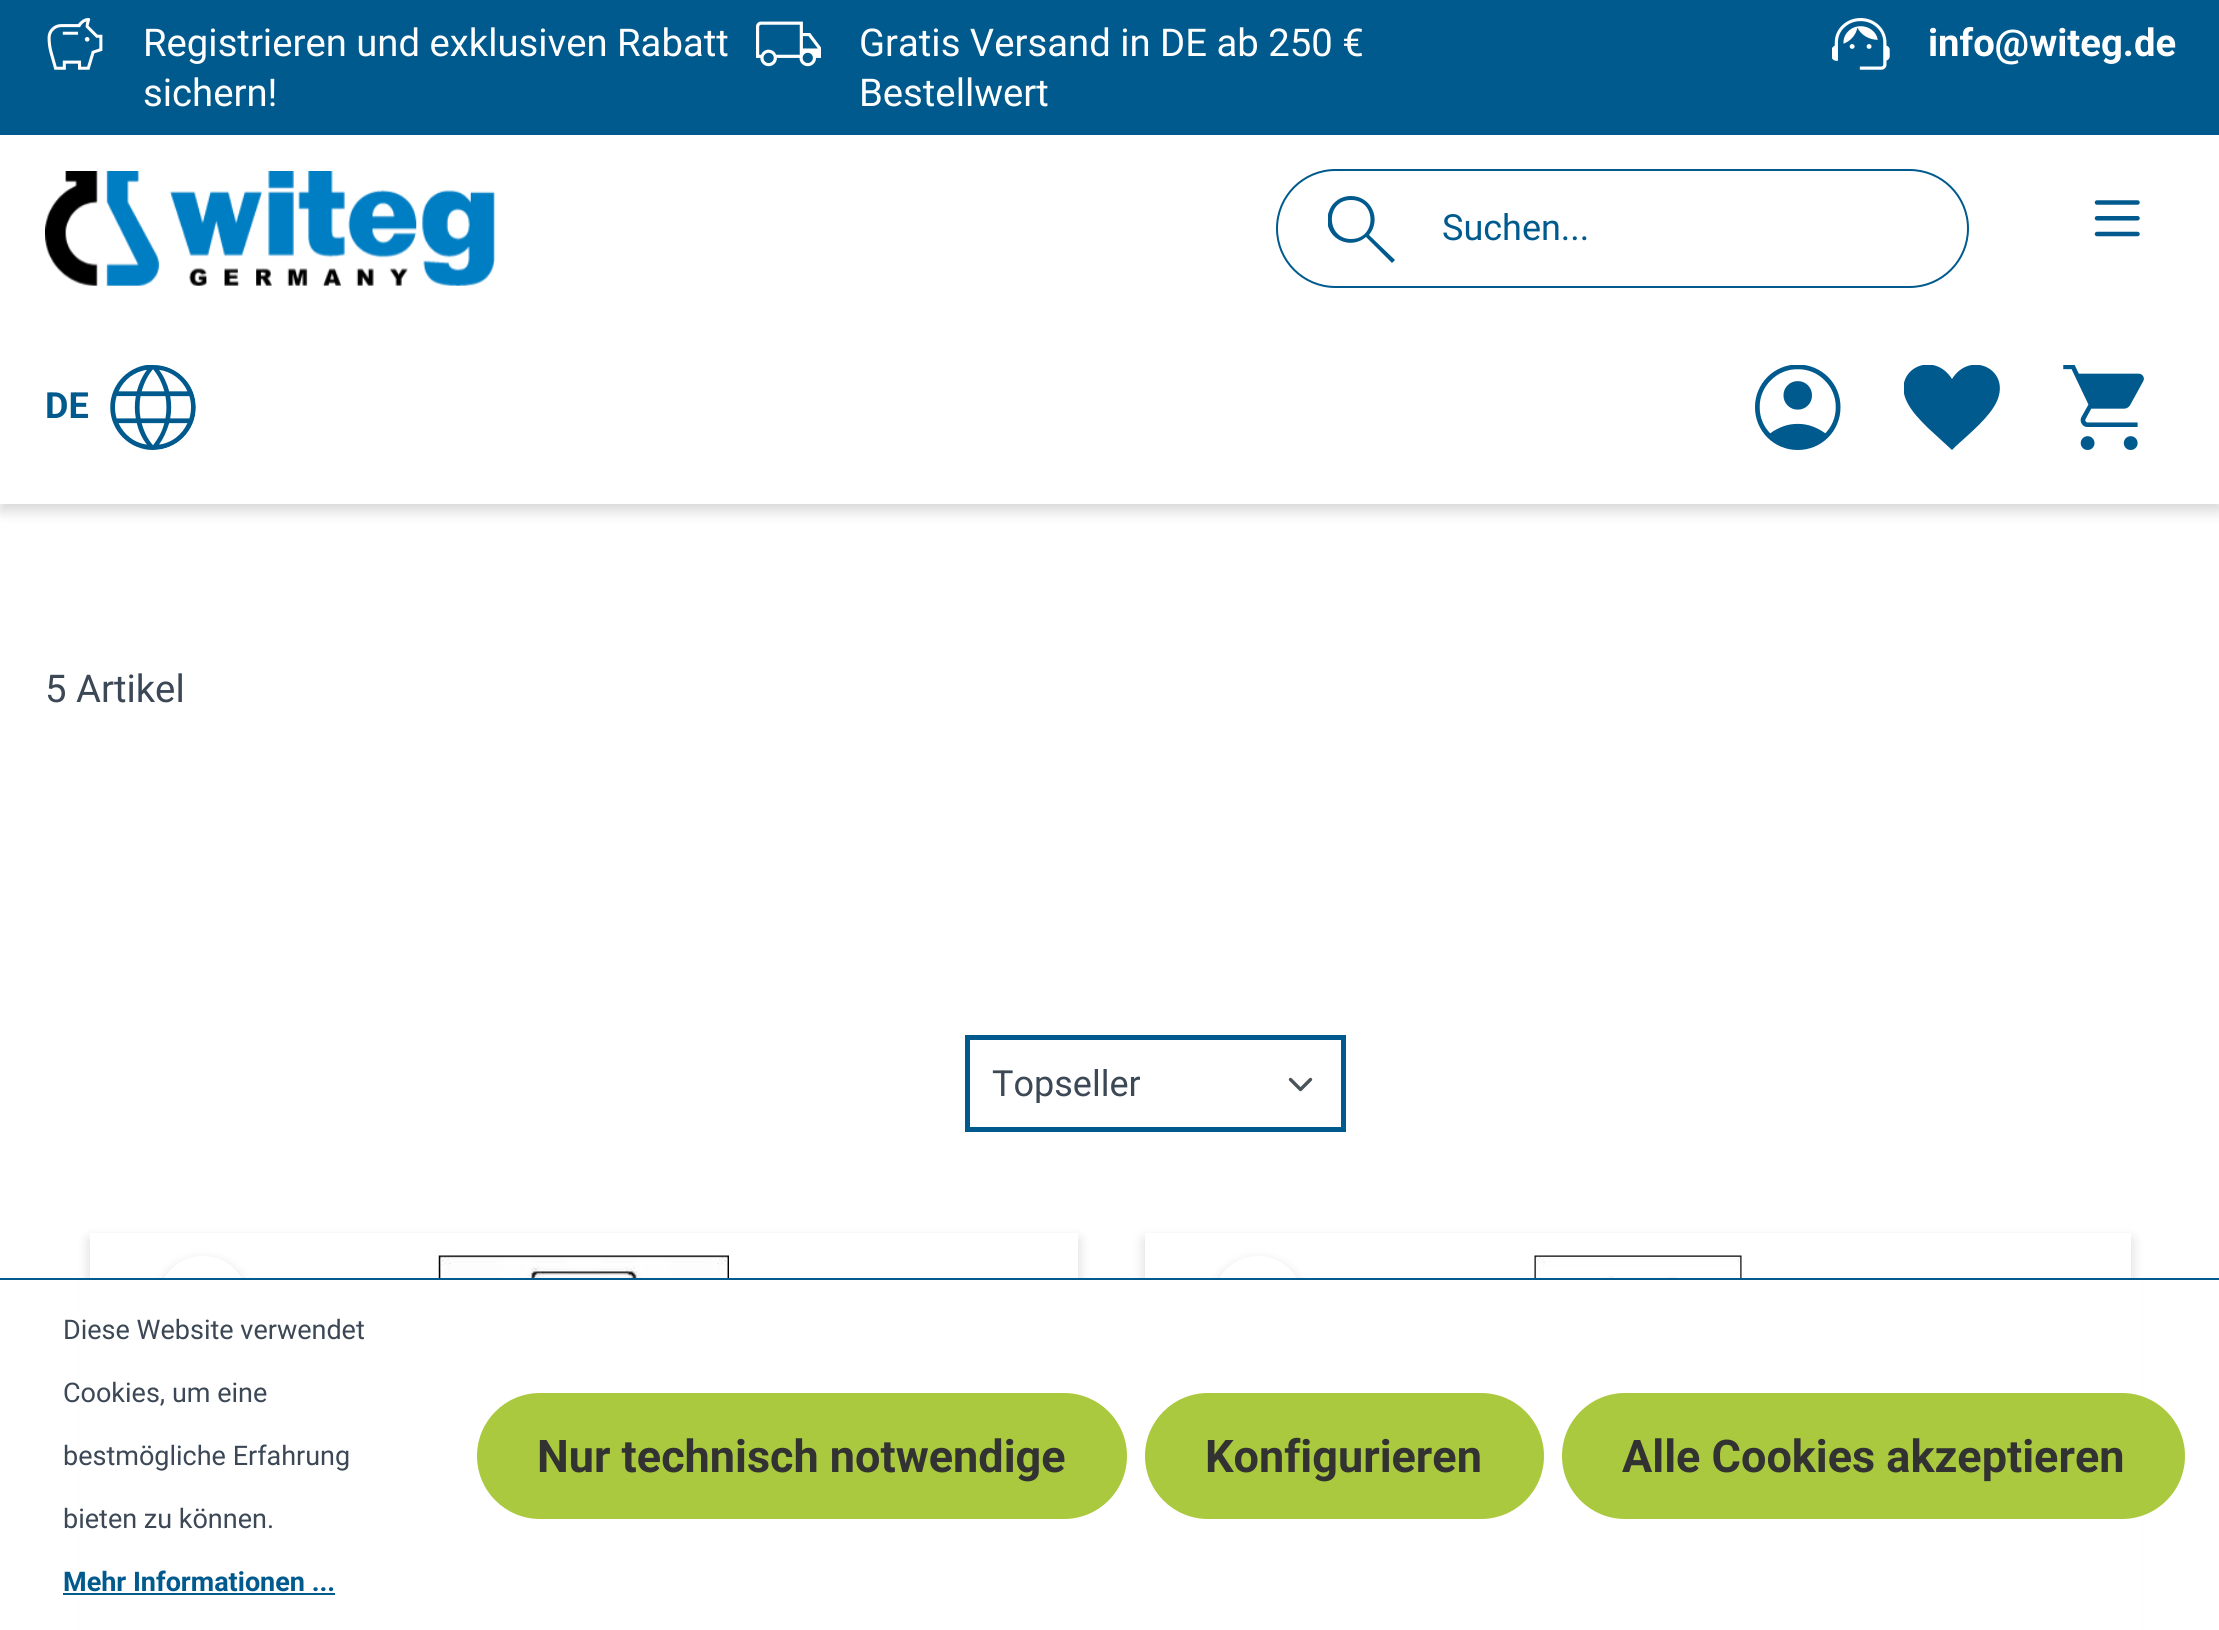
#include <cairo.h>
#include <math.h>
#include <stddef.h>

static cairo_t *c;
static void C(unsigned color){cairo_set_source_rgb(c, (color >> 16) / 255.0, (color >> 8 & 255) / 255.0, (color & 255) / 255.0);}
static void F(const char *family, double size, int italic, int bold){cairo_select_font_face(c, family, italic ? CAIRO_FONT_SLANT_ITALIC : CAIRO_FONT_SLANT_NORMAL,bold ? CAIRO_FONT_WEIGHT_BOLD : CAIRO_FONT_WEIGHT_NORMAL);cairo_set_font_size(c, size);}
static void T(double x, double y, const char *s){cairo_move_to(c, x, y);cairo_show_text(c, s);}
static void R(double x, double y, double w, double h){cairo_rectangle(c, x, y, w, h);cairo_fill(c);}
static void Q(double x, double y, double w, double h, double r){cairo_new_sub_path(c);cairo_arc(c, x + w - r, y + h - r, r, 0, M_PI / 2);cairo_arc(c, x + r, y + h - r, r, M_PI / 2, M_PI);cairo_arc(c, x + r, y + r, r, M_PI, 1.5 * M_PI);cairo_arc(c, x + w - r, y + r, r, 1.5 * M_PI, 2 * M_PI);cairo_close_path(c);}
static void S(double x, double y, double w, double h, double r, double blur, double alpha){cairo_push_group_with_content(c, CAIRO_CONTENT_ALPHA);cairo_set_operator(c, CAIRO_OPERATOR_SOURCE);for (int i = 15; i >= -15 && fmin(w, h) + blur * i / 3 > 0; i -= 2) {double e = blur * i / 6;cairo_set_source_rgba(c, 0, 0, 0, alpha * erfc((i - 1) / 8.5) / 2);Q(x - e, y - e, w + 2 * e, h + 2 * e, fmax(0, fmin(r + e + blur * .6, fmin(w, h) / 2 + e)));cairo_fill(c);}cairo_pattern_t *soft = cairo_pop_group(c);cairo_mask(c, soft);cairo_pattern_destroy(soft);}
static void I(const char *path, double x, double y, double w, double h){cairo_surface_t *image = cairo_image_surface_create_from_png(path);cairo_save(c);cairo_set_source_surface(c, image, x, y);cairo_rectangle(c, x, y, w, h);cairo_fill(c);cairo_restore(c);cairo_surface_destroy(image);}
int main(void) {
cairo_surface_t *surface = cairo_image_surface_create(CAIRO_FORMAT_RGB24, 2219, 1630);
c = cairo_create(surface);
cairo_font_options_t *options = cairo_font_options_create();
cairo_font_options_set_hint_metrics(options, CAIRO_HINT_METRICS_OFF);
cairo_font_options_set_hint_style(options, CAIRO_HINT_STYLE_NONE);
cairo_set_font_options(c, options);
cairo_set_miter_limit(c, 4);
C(0xffffff);
cairo_paint(c);
C(0x000000);
S(0,7,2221,504,0,7,.16);
C(0xffffff);
R(0,135,2219,369);
C(0x005a8d);
R(0,0,2219,135);
I("1.png",47,18,56,52);
F("Roboto",38.25,0,0);
C(0xffffff);
T(143,56,"Registrieren und exklusiven Rabatt");
T(143,106,"sichern!");
I("2.png",756,21,65,46);
T(859,56,"Gratis Versand in DE ab 250 €");
T(859,106,"Bestellwert");
I("3.png",1832,18,58,52);
F("Roboto",38.25,0,1);
T(1928,56,"info@witeg.de");
I("4.png",45,171,450,115);
Q(1277,170,691,117,58.5);
C(0x005a8d);
cairo_stroke(c);
cairo_save(c);
cairo_rectangle(c,1328,196,67,67);
cairo_clip(c);
cairo_new_path(c);
cairo_move_to(c,1392,263);
cairo_line_to(c,1366,237);
cairo_curve_to(c,1351,250,1327,240,1327,219);
cairo_curve_to(c,1328,213,1330,207,1334,203);
cairo_curve_to(c,1339,198,1345,196,1351,196);
cairo_curve_to(c,1371,196,1382,219,1369,235);
cairo_line_to(c,1395,260);
cairo_close_path(c);
cairo_move_to(c,1351,239);
cairo_curve_to(c,1377,239,1377,200,1351,200);
cairo_curve_to(c,1325,200,1326,239,1351,239);
cairo_close_path(c);
cairo_fill(c);
cairo_restore(c);
F("Roboto",36,0,0);
T(1442,240,"Suchen...");
I("5.png",2094,200,46,37);
F("Roboto",36,0,1);
T(45,418,"DE");
I("6.png",110,365,86,85);
I("7.png",1755,365,86,85);
cairo_save(c);
cairo_rectangle(c,1904,365,96,85);
cairo_clip(c);
cairo_new_path(c);
cairo_move_to(c,1952,450);
cairo_line_to(c,1928,428);
cairo_curve_to(c,1920,420,1912,412,1907,402);
cairo_curve_to(c,1891,370,1933,349,1952,379);
cairo_curve_to(c,1970,350,2011,369,1997,401);
cairo_curve_to(c,1990,417,1969,434,1956,446);
cairo_close_path(c);
cairo_fill(c);
cairo_restore(c);
I("8.png",2063,365,81,85);
F("Roboto",38.25,0,0);
C(0x3c4856);
T(45,702,"5 Artikel");
cairo_new_path(c);
cairo_move_to(c,1290.5,1079.5);
cairo_line_to(c,1300.5,1089.5);
cairo_line_to(c,1310.5,1079.5);
C(0x4a545b);
cairo_set_line_width(c,3.4);
cairo_set_line_cap(c,CAIRO_LINE_CAP_ROUND);
cairo_set_line_join(c,CAIRO_LINE_JOIN_ROUND);
cairo_stroke(c);
cairo_rectangle(c,967.5,1037.5,376,92);
C(0x005a8d);
cairo_set_line_width(c,5);
cairo_set_line_cap(c,CAIRO_LINE_CAP_BUTT);
cairo_set_line_join(c,CAIRO_LINE_JOIN_MITER);
cairo_stroke(c);
cairo_save(c);
cairo_rectangle(c,992,1067,282,36);
cairo_clip(c);
F("Roboto",36,0,0);
C(0x3c4856);
T(992,1096,"Topseller");
cairo_restore(c);
C(0x000000);
S(90,1240,988,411,0,7,.16);
C(0xffffff);
R(90,1233,988,45);
C(0x000000);
S(158,1262,90,90,45,7,.16);
C(0xffffff);
cairo_arc(c,203,1301,45,0,2 * M_PI);
cairo_fill(c);
I("9.png",438,1255,291,23);
C(0x000000);
S(1145,1240,986,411,0,7,.16);
C(0xffffff);
R(1145,1233,986,45);
C(0x000000);
S(1213,1262,90,90,45,7,.16);
C(0xffffff);
cairo_arc(c,1258,1301,45,0,2 * M_PI);
cairo_fill(c);
I("10.png",1534,1255,208,23);
R(79,1280,2063,350);
C(0x005a8d);
R(0,1278,2219,2);
F("Roboto",27,0,0);
C(0x3c4856);
T(63,1339,"Diese Website verwendet");
T(63,1402,"Cookies, um eine");
T(63,1465,"bestmögliche Erfahrung");
T(63,1528,"bieten zu können.");
F("Roboto",27,0,1);
C(0x005a8d);
T(63,1591,"Mehr Informationen ...");
R(63,1593,272,2);
C(0xaac93e);
Q(477,1393,650,126,63);
cairo_fill(c);
F("Roboto",45,0,1);
C(0x323232);
T(537,1472,"Nur technisch notwendige");
C(0xaac93e);
Q(1145,1393,399,126,63);
cairo_fill(c);
C(0x323232);
T(1205,1472,"Konfigurieren");
C(0xaac93e);
Q(1562,1393,623,126,63);
cairo_fill(c);
C(0x323232);
T(1622,1472,"Alle Cookies akzeptieren");
cairo_surface_write_to_png(surface, "o.png");
cairo_font_options_destroy(options);
cairo_destroy(c);
cairo_surface_destroy(surface);
return 0;
}
